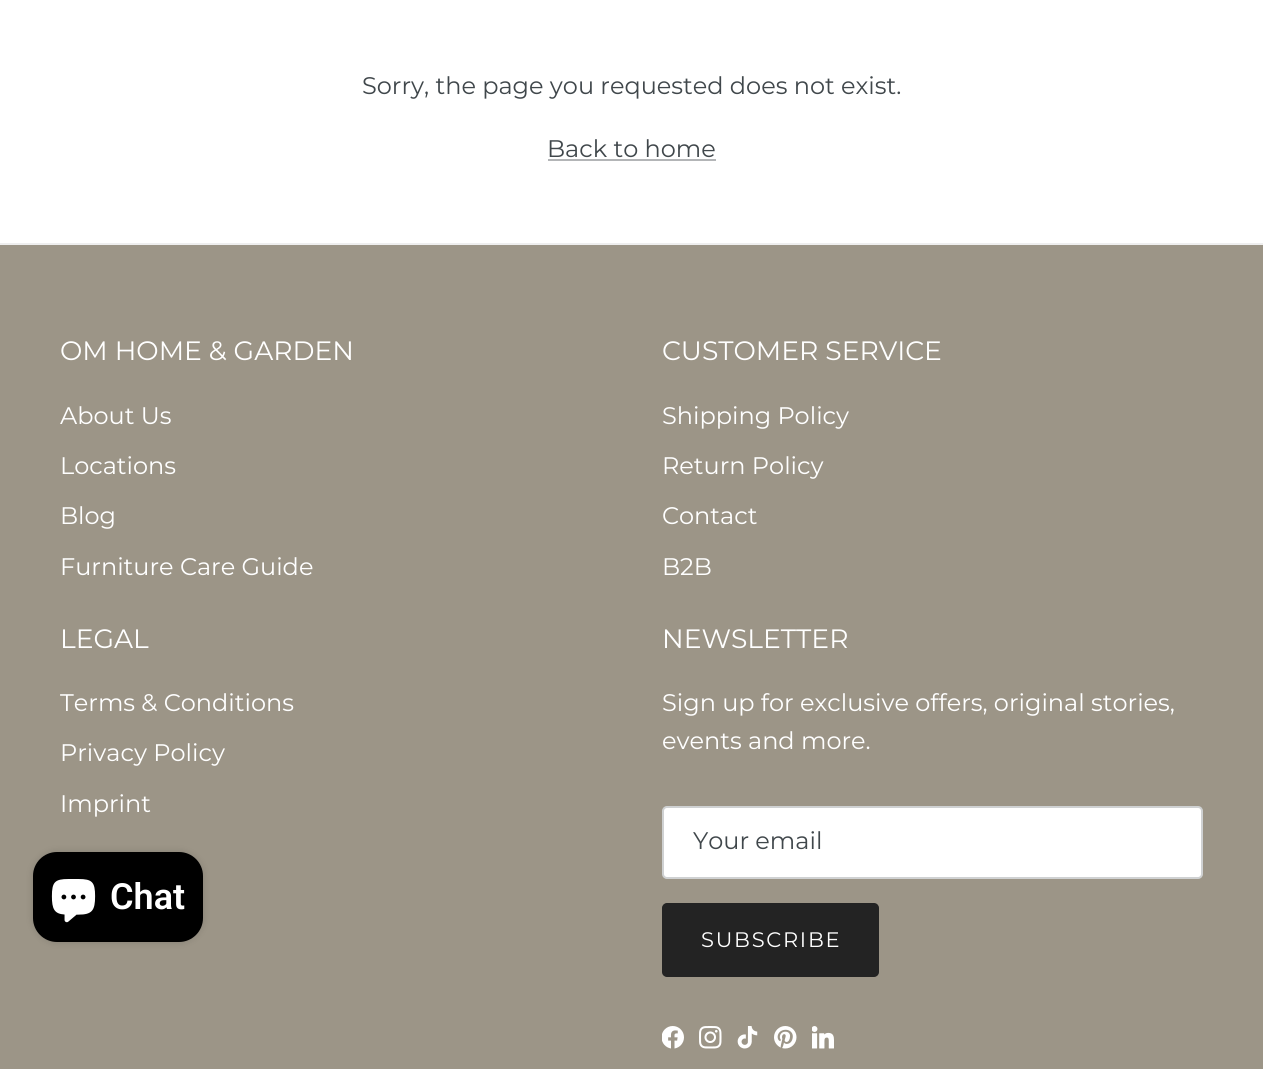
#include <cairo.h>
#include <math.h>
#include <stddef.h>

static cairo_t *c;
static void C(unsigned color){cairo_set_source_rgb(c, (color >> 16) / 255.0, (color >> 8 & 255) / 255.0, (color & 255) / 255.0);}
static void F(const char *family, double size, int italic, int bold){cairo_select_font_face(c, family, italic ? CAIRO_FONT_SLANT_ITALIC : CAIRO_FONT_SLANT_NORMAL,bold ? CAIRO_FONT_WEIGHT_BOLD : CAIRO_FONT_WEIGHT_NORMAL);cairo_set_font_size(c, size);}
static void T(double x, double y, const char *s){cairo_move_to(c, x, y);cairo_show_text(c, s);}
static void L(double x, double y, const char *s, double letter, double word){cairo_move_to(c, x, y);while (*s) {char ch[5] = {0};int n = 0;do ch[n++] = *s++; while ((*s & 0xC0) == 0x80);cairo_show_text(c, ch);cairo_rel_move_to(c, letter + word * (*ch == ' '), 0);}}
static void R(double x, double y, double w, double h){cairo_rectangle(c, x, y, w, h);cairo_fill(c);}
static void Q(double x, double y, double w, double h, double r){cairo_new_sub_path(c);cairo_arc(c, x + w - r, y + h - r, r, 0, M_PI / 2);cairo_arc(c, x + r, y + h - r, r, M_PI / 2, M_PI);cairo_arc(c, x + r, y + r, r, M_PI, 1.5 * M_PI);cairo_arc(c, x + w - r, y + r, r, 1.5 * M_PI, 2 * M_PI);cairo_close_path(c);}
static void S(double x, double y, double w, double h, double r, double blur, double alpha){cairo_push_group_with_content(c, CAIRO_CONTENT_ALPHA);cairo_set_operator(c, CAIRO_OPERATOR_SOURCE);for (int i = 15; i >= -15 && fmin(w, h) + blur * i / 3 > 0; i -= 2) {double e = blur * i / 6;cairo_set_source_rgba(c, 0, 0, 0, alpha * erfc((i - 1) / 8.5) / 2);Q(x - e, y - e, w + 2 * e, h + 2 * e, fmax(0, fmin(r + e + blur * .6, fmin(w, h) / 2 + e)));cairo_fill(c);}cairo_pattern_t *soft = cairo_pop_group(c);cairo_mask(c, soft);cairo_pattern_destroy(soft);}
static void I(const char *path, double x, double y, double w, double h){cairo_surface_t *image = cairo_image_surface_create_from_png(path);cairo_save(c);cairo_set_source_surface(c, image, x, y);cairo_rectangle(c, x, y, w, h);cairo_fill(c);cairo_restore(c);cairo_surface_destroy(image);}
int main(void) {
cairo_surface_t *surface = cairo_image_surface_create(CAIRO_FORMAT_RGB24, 1263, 1069);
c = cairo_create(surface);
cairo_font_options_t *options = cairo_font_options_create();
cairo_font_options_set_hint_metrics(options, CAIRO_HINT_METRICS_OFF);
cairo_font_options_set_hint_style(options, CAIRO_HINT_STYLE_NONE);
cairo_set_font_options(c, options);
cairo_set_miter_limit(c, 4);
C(0xffffff);
cairo_paint(c);
F("Montserrat",24,0,0);
C(0x40474b);
T(362,94,"Sorry, the page you requested does not exist.");
T(547,157,"Back to home");
C(0xb3b5b7);
R(548,159,168,2);
C(0x9c9587);
R(0,245,1263,824);
C(0xeeeeee);
R(0,243,1263,2);
F("Montserrat",26.6,0,0);
C(0xffffff);
T(60,360,"OM HOME & GARDEN");
F("Montserrat",24,0,0);
T(60,424,"About Us");
T(60,474,"Locations");
T(60,524,"Blog");
T(60,575,"Furniture Care Guide");
F("Montserrat",26.6,0,0);
T(662,360,"CUSTOMER SERVICE");
F("Montserrat",24,0,0);
T(662,424,"Shipping Policy");
T(662,474,"Return Policy");
T(662,524,"Contact");
T(662,575,"B2B");
F("Montserrat",26.6,0,0);
T(60,648,"LEGAL");
F("Montserrat",24,0,0);
T(60,711,"Terms & Conditions");
T(60,761,"Privacy Policy");
T(60,812,"Imprint");
F("Montserrat",26.6,0,0);
T(662,648,"NEWSLETTER");
F("Montserrat",24,0,0);
T(662,711,"Sign up for exclusive offers, original stories,");
T(662,749,"events and more.");
Q(663,807,539,71,4);
cairo_fill_preserve(c);
C(0xcfd1d2);
cairo_stroke(c);
C(0x40474b);
T(693,849,"Your email");
C(0x232323);
Q(663,904,215,72,4);
cairo_fill_preserve(c);
cairo_stroke(c);
F("Montserrat",21,0,0);
C(0xffffff);
L(701,947,"SUBSCRIBE",1.75,0);
I("1.png",662,1026,22,23);
I("2.png",699,1026,23,23);
I("3.png",737,1026,21,23);
I("4.png",774,1026,23,23);
I("5.png",812,1026,22,23);
C(0x000000);
S(33,852,170,90,24,4,.15);
C(0x000000);
Q(33,852,170,90,24);
cairo_fill(c);
I("6.png",51,879,45,44);
F("Roboto SemiBold",36,0,0);
C(0xffffff);
T(110,909,"Chat");
cairo_surface_write_to_png(surface, "o.png");
cairo_font_options_destroy(options);
cairo_destroy(c);
cairo_surface_destroy(surface);
return 0;
}
